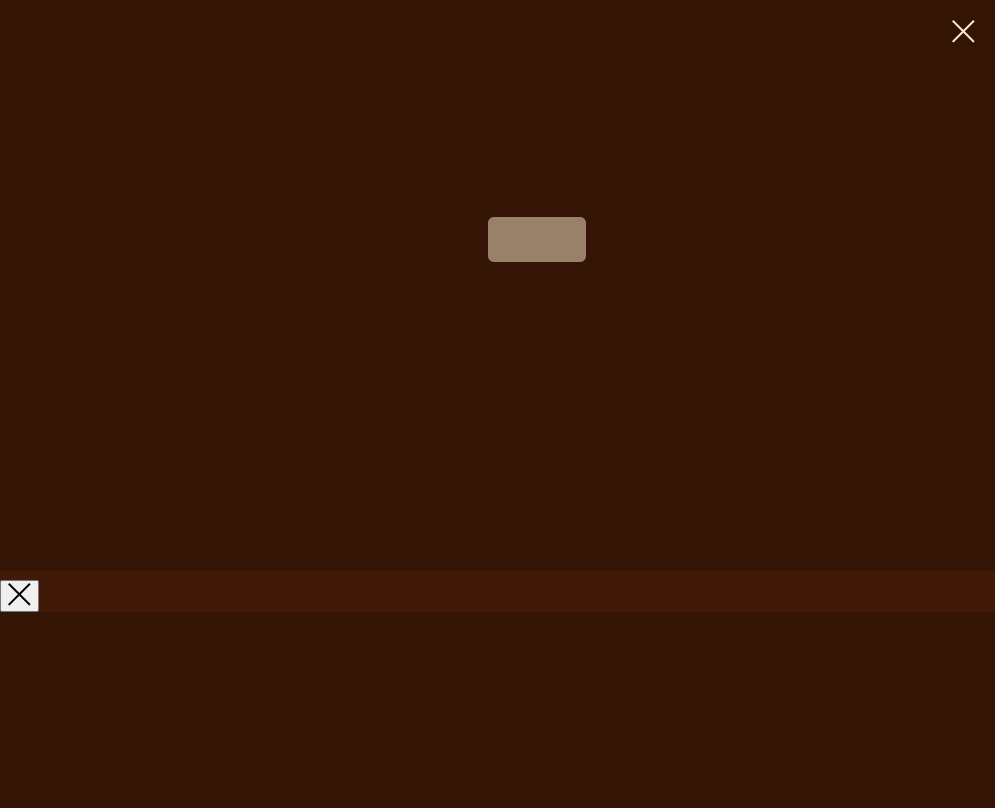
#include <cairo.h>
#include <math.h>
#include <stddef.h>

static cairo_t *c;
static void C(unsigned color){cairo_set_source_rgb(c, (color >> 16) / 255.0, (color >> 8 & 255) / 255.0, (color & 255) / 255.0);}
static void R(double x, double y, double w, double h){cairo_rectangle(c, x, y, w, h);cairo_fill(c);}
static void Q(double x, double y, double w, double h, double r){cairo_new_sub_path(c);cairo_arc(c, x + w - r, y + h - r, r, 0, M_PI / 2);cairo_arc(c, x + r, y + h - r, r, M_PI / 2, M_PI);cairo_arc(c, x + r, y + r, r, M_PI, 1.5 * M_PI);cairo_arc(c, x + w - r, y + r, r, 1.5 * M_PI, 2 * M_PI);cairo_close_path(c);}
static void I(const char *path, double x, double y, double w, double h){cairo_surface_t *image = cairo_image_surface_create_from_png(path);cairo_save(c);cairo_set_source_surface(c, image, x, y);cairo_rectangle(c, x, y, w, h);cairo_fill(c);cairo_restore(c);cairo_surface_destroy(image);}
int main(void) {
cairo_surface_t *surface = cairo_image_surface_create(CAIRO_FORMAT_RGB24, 995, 808);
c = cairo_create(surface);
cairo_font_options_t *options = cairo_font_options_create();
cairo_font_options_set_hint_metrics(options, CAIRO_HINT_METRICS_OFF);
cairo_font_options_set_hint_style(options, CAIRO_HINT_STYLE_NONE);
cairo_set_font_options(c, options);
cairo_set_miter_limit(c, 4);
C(0x331405);
cairo_paint(c);
C(0x401a06);
R(0,570,995,42);
I("1.png",952,20,23,23);
C(0x998169);
Q(488,217,98,45,6);
cairo_fill(c);
C(0xefefef);
Q(.5,580.5,38,31,1.5);
cairo_fill_preserve(c);
C(0x767676);
cairo_set_line_width(c,1);
cairo_stroke(c);
I("2.png",8,583,23,23);
cairo_surface_write_to_png(surface, "o.png");
cairo_font_options_destroy(options);
cairo_destroy(c);
cairo_surface_destroy(surface);
return 0;
}
